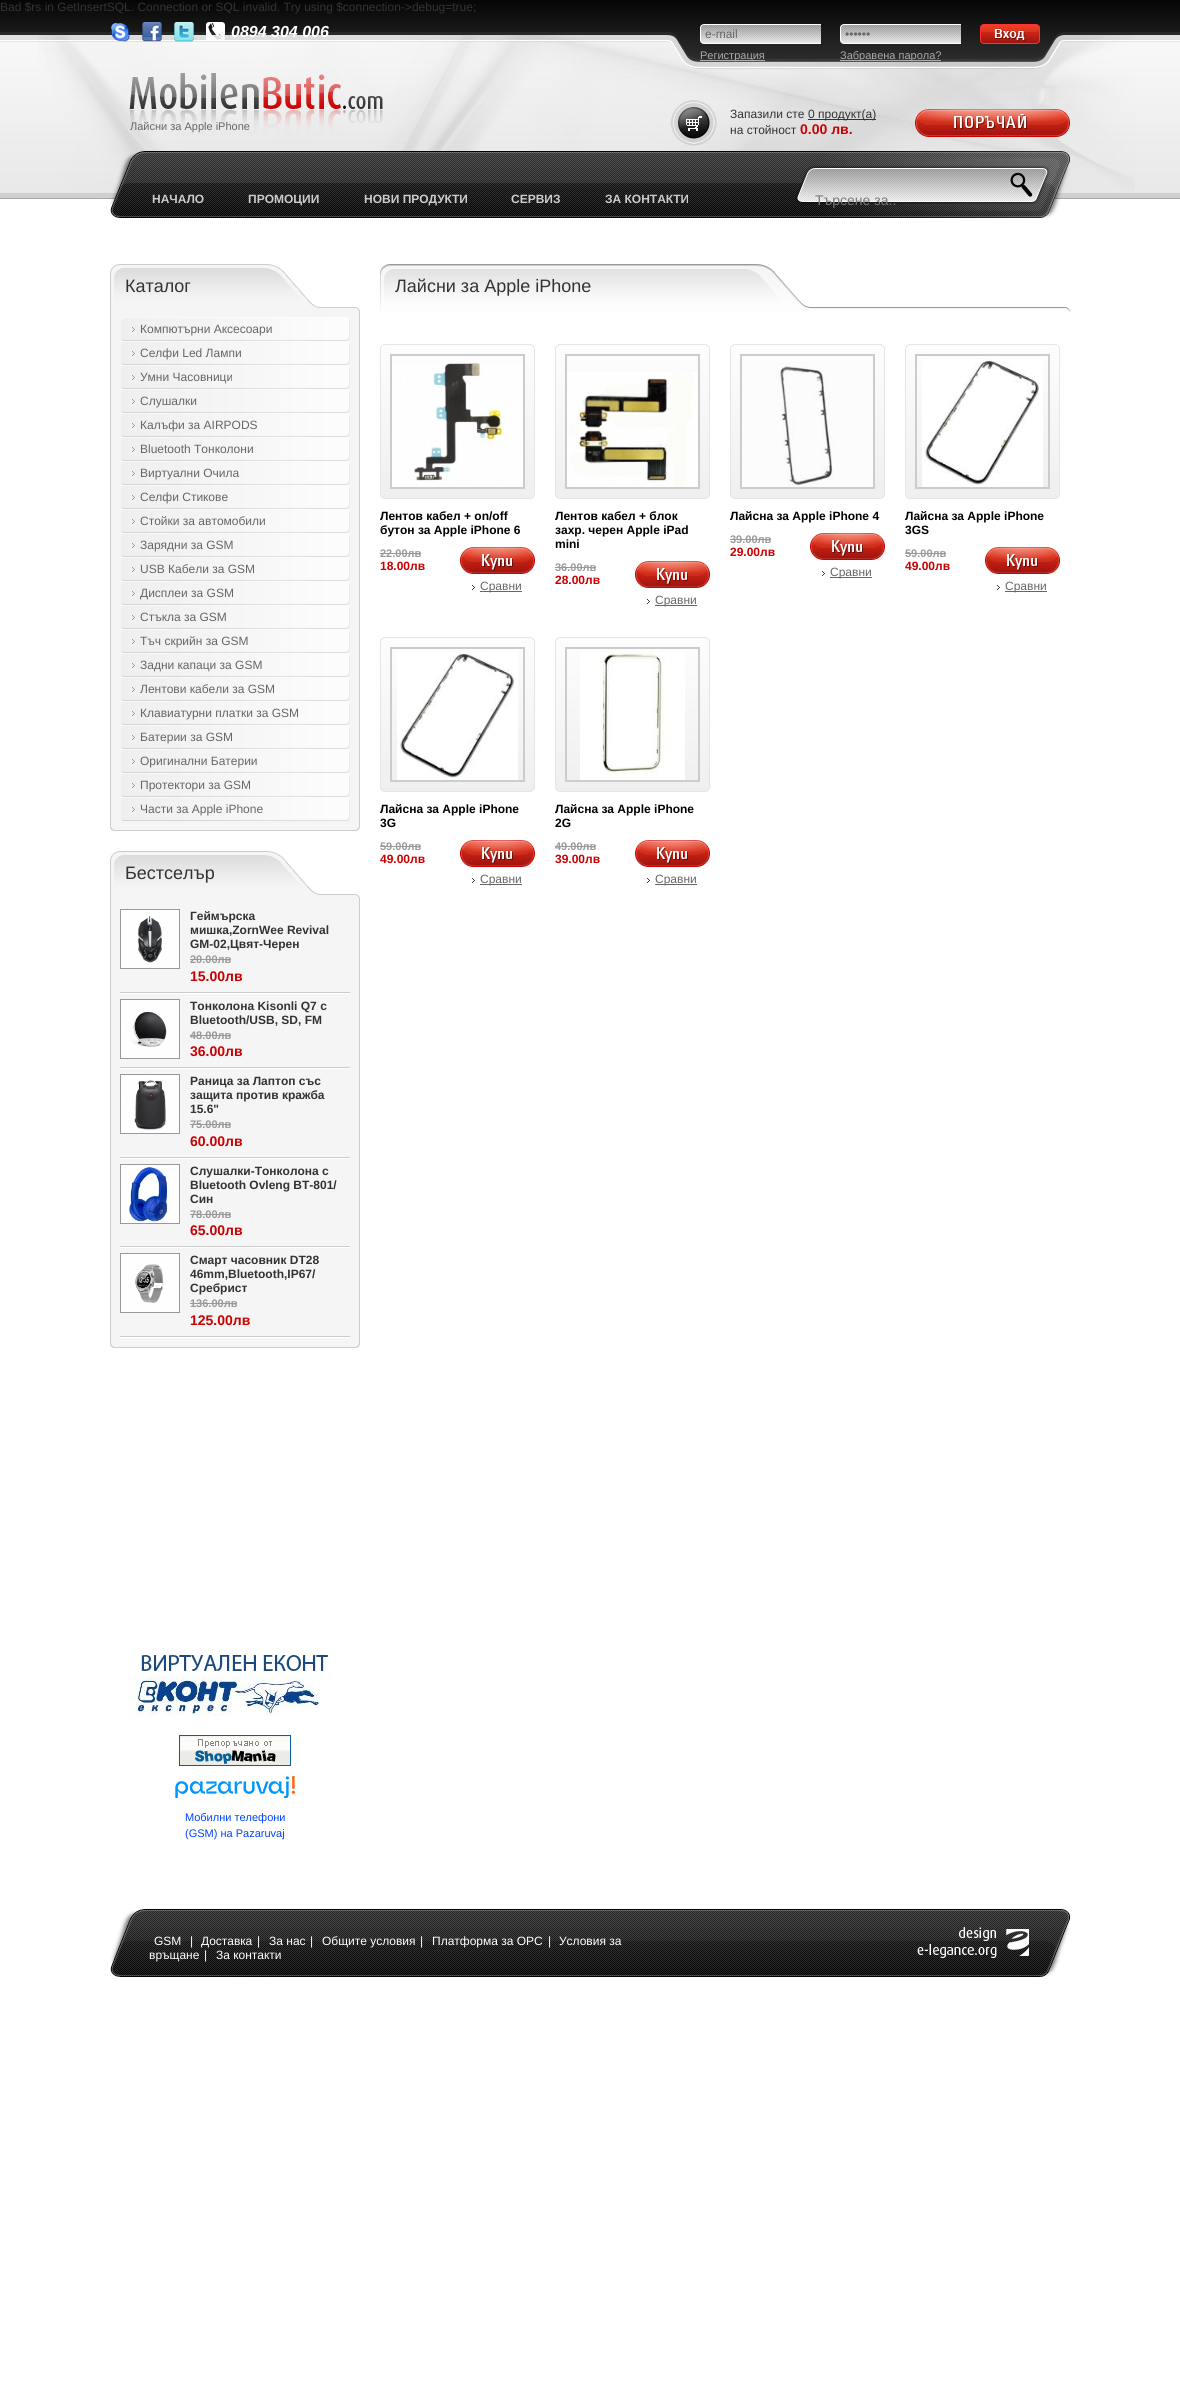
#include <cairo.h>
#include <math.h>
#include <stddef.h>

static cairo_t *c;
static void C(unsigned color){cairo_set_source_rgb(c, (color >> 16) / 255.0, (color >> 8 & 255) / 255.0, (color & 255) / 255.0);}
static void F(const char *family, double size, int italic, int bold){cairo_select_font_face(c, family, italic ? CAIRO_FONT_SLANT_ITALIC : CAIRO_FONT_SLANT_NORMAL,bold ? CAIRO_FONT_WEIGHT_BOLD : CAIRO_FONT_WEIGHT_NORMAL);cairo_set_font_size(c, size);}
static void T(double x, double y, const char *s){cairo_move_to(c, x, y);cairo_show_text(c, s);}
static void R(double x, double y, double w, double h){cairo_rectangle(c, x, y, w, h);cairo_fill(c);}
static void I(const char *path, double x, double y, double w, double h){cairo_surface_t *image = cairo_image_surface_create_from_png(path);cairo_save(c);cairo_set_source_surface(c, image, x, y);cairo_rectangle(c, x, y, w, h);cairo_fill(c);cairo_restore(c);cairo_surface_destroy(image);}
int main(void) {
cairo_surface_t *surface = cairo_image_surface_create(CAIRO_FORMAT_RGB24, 1180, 2384);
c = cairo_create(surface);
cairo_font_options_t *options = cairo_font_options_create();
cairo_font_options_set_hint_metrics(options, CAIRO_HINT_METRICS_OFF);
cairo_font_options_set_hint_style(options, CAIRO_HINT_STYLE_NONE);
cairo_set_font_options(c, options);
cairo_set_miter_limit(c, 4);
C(0xffffff);
cairo_paint(c);
I("1.png",0,0,1180,199);
I("2.png",37,32,1098,188);
F("Liberation Sans",12,0,0);
C(0x333333);
T(0,11,"Bad $rs in GetInsertSQL. Connection or SQL invalid. Try using $connection->debug=true;");
I("3.png",110,22,20,20);
I("4.png",142,22,20,20);
I("5.png",174,22,20,20);
I("6.png",206,22,19,18);
F("Liberation Sans",16,1,1);
C(0xffffff);
T(231,37,"0894 304 006");
I("7.png",700,24,121,20);
F("Liberation Sans",12,0,0);
C(0x666666);
T(705,38,"e-mail");
C(0xaaaaaa);
R(700,60,65,1);
F("Liberation Sans",11,0,0);
T(700,59,"Регистрация");
I("7.png",840,24,121,20);
F("Liberation Sans",12,0,0);
C(0x666666);
T(845,38,"••••••");
C(0xaaaaaa);
R(840,60,101,1);
F("Liberation Sans",11,0,0);
T(840,59,"Забравена парола?");
I("8.png",980,24,60,20);
I("9.png",670,99,47,47);
F("Liberation Sans",12,0,0);
C(0x333333);
T(730,118,"Запазили сте");
R(808,119,68,1);
T(808,118,"0 продукт(а)");
T(730,134,"на стойност");
F("Liberation Sans",14,0,1);
C(0xcc0000);
T(800,134,"0.00 лв.");
I("10.png",915,109,155,28);
F("Liberation Sans",12,0,1);
C(0xcccccc);
T(152,203,"НАЧАЛО");
T(248,203,"ПРОМОЦИИ");
T(364,203,"НОВИ ПРОДУКТИ");
T(511,203,"СЕРВИЗ");
T(605,203,"ЗА КОНТАКТИ");
F("Liberation Sans",14,0,0);
C(0x777777);
T(815,205,"Търсене за..");
I("11.png",110,264,250,50);
F("Liberation Sans",18,0,0);
C(0x333333);
T(125,292,"Каталог");
C(0xf5f5f5);
cairo_new_path(c);
cairo_move_to(c,110,314);
cairo_line_to(c,360,314);
cairo_line_to(c,360,826);
cairo_curve_to(c,360,829,358,831,355,831);
cairo_line_to(c,115,831);
cairo_curve_to(c,112,831,110,829,110,826);
cairo_close_path(c);
cairo_fill(c);
C(0xcccccc);
cairo_set_fill_rule(c,CAIRO_FILL_RULE_EVEN_ODD);
cairo_new_path(c);
cairo_move_to(c,110,314);
cairo_line_to(c,360,314);
cairo_line_to(c,360,826);
cairo_curve_to(c,360,829,358,831,355,831);
cairo_line_to(c,115,831);
cairo_curve_to(c,112,831,110,829,110,826);
cairo_close_path(c);
cairo_move_to(c,111,314);
cairo_line_to(c,359,314);
cairo_line_to(c,359,826);
cairo_curve_to(c,359,828,357,830,355,830);
cairo_line_to(c,115,830);
cairo_curve_to(c,113,830,111,828,111,826);
cairo_close_path(c);
cairo_fill(c);
I("12.png",121,317,229,24);
F("Liberation Sans",12,0,0);
C(0x666666);
T(140,333,"Компютърни Аксесоари");
I("12.png",121,341,229,24);
T(140,357,"Селфи Led Лампи");
I("12.png",121,365,229,24);
T(140,381,"Умни Часовници");
I("12.png",121,389,229,24);
T(140,405,"Слушалки");
I("12.png",121,413,229,24);
T(140,429,"Калъфи за AIRPODS");
I("12.png",121,437,229,24);
T(140,453,"Bluetooth Тонколони");
I("12.png",121,461,229,24);
T(140,477,"Виртуални Очила");
I("12.png",121,485,229,24);
T(140,501,"Селфи Стикове");
I("12.png",121,509,229,24);
T(140,525,"Стойки за автомобили");
I("12.png",121,533,229,24);
T(140,549,"Зарядни за GSM");
I("12.png",121,557,229,24);
T(140,573,"USB Кабели за GSM");
I("12.png",121,581,229,24);
T(140,597,"Дисплеи за GSM");
I("12.png",121,605,229,24);
T(140,621,"Стъкла за GSM");
I("12.png",121,629,229,24);
T(140,645,"Тъч скрийн за GSM");
I("12.png",121,653,229,24);
T(140,669,"Задни капаци за GSM");
I("12.png",121,677,229,24);
T(140,693,"Лентови кабели за GSM");
I("12.png",121,701,229,24);
T(140,717,"Клавиатурни платки за GSM");
I("12.png",121,725,229,24);
T(140,741,"Батерии за GSM");
I("12.png",121,749,229,24);
T(140,765,"Оригинални Батерии");
I("12.png",121,773,229,24);
T(140,789,"Протектори за GSM");
I("12.png",121,797,229,24);
T(140,813,"Части за Apple iPhone");
I("11.png",110,851,250,50);
F("Liberation Sans",18,0,0);
C(0x333333);
T(125,879,"Бестселър");
C(0xf5f5f5);
cairo_new_path(c);
cairo_move_to(c,110,901);
cairo_line_to(c,360,901);
cairo_line_to(c,360,1343);
cairo_curve_to(c,360,1346,358,1348,355,1348);
cairo_line_to(c,115,1348);
cairo_curve_to(c,112,1348,110,1346,110,1343);
cairo_close_path(c);
cairo_fill(c);
C(0xcccccc);
cairo_new_path(c);
cairo_move_to(c,110,901);
cairo_line_to(c,360,901);
cairo_line_to(c,360,1343);
cairo_curve_to(c,360,1346,358,1348,355,1348);
cairo_line_to(c,115,1348);
cairo_curve_to(c,112,1348,110,1346,110,1343);
cairo_close_path(c);
cairo_move_to(c,111,901);
cairo_line_to(c,359,901);
cairo_line_to(c,359,1343);
cairo_curve_to(c,359,1345,357,1347,355,1347);
cairo_line_to(c,115,1347);
cairo_curve_to(c,113,1347,111,1345,111,1343);
cairo_close_path(c);
cairo_fill(c);
I("13.png",120,992,230,2);
cairo_rectangle(c,120.5,909.5,59,59);
C(0x999999);
cairo_set_line_width(c,1);
cairo_stroke(c);
I("14.png",121,910,58,58);
F("Liberation Sans",12,0,1);
C(0x333333);
T(190,920,"Геймърска");
T(190,934,"мишка,ZornWee Revival");
T(190,948,"GM-02,Цвят-Черен");
F("Liberation Sans",11,0,1);
C(0x999999);
T(190,963,"20.00лв");
R(190,959,41,1);
F("Liberation Sans",14,0,1);
C(0xcc0000);
T(190,981,"15.00лв");
I("13.png",120,1067,230,2);
cairo_rectangle(c,120.5,999.5,59,59);
C(0x999999);
cairo_stroke(c);
I("15.png",121,1000,58,58);
F("Liberation Sans",12,0,1);
C(0x333333);
T(190,1010,"Тонколона Kisonli Q7 с");
T(190,1024,"Bluetooth/USB, SD, FM");
F("Liberation Sans",11,0,1);
C(0x999999);
T(190,1039,"48.00лв");
R(190,1035,41,1);
F("Liberation Sans",14,0,1);
C(0xcc0000);
T(190,1056,"36.00лв");
I("13.png",120,1157,230,2);
cairo_rectangle(c,120.5,1074.5,59,59);
C(0x999999);
cairo_stroke(c);
I("16.png",121,1075,58,58);
F("Liberation Sans",12,0,1);
C(0x333333);
T(190,1085,"Раница за Лаптоп със");
T(190,1099,"защита против кражба");
T(190,1113,"15.6\"");
F("Liberation Sans",11,0,1);
C(0x999999);
T(190,1128,"75.00лв");
R(190,1124,41,1);
F("Liberation Sans",14,0,1);
C(0xcc0000);
T(190,1146,"60.00лв");
I("13.png",120,1246,230,2);
cairo_rectangle(c,120.5,1164.5,59,59);
C(0x999999);
cairo_stroke(c);
I("17.png",121,1165,58,58);
F("Liberation Sans",12,0,1);
C(0x333333);
T(190,1175,"Слушалки-Тонколона с");
T(190,1189,"Bluetooth Ovleng BT-801/");
T(190,1203,"Син");
F("Liberation Sans",11,0,1);
C(0x999999);
T(190,1218,"78.00лв");
R(190,1214,41,1);
F("Liberation Sans",14,0,1);
C(0xcc0000);
T(190,1235,"65.00лв");
I("13.png",120,1336,230,2);
cairo_rectangle(c,120.5,1253.5,59,59);
C(0x999999);
cairo_stroke(c);
I("18.png",121,1254,58,58);
F("Liberation Sans",12,0,1);
C(0x333333);
T(190,1264,"Смарт часовник DT28");
T(190,1278,"46mm,Bluetooth,IP67/");
T(190,1292,"Сребрист");
F("Liberation Sans",11,0,1);
C(0x999999);
T(190,1307,"136.00лв");
R(190,1303,47,1);
F("Liberation Sans",14,0,1);
C(0xcc0000);
T(190,1325,"125.00лв");
I("19.png",128,1655,200,65);
I("20.png",179,1735,112,31);
I("21.png",175,1776,120,22);
F("Liberation Sans",11,0,0);
C(0x0044ff);
T(185,1821,"Мобилни телефони");
T(185,1837,"(GSM) на Pazaruvaj");
I("22.png",380,264,690,50);
F("Liberation Sans",18,0,0);
C(0x333333);
T(395,292,"Лайсни за Apple iPhone");
I("23.png",380,344,155,155);
cairo_rectangle(c,391,355,133,133);
C(0xcccccc);
cairo_set_line_width(c,2);
cairo_stroke(c);
I("24.png",392,363,131,124);
F("Liberation Sans",12,0,1);
C(0x000000);
T(380,520,"Лентов кабел + on/off");
T(380,534,"бутон за Apple iPhone 6");
F("Liberation Sans",11,0,1);
C(0x999999);
T(380,557,"22.00лв");
R(380,553,41,1);
F("Liberation Sans",12,0,1);
C(0xcc0000);
T(380,570,"18.00лв");
I("25.png",460,547,75,27);
I("26.png",472,585,3,5);
C(0x666666);
R(480,591,42,1);
F("Liberation Sans",12,0,0);
T(480,590,"Сравни");
I("23.png",555,344,155,155);
cairo_rectangle(c,566,355,133,133);
C(0xcccccc);
cairo_stroke(c);
I("27.png",567,372,131,115);
F("Liberation Sans",12,0,1);
C(0x000000);
T(555,520,"Лентов кабел + блок");
T(555,534,"захр. черен Apple iPad");
T(555,548,"mini");
F("Liberation Sans",11,0,1);
C(0x999999);
T(555,571,"36.00лв");
R(555,567,41,1);
F("Liberation Sans",12,0,1);
C(0xcc0000);
T(555,584,"28.00лв");
I("25.png",635,561,75,27);
I("26.png",647,599,3,5);
C(0x666666);
R(655,605,42,1);
F("Liberation Sans",12,0,0);
T(655,604,"Сравни");
I("23.png",730,344,155,155);
cairo_rectangle(c,741,355,133,133);
C(0xcccccc);
cairo_stroke(c);
I("28.png",742,365,131,122);
F("Liberation Sans",12,0,1);
C(0x000000);
T(730,520,"Лайсна за Apple iPhone 4");
F("Liberation Sans",11,0,1);
C(0x999999);
T(730,543,"39.00лв");
R(730,539,41,1);
F("Liberation Sans",12,0,1);
C(0xcc0000);
T(730,556,"29.00лв");
I("25.png",810,533,75,27);
I("26.png",822,571,3,5);
C(0x666666);
R(830,577,42,1);
F("Liberation Sans",12,0,0);
T(830,576,"Сравни");
I("23.png",905,344,155,155);
cairo_rectangle(c,916,355,133,133);
C(0xcccccc);
cairo_stroke(c);
I("29.png",922,359,121,128);
F("Liberation Sans",12,0,1);
C(0x000000);
T(905,520,"Лайсна за Apple iPhone");
T(905,534,"3GS");
F("Liberation Sans",11,0,1);
C(0x999999);
T(905,557,"59.00лв");
R(905,553,41,1);
F("Liberation Sans",12,0,1);
C(0xcc0000);
T(905,570,"49.00лв");
I("25.png",985,547,75,27);
I("26.png",997,585,3,5);
C(0x666666);
R(1005,591,42,1);
F("Liberation Sans",12,0,0);
T(1005,590,"Сравни");
I("23.png",380,637,155,155);
cairo_rectangle(c,391,648,133,133);
C(0xcccccc);
cairo_stroke(c);
I("29.png",397,652,121,128);
F("Liberation Sans",12,0,1);
C(0x000000);
T(380,813,"Лайсна за Apple iPhone");
T(380,827,"3G");
F("Liberation Sans",11,0,1);
C(0x999999);
T(380,850,"59.00лв");
R(380,846,41,1);
F("Liberation Sans",12,0,1);
C(0xcc0000);
T(380,863,"49.00лв");
I("25.png",460,840,75,27);
I("26.png",472,878,3,5);
C(0x666666);
R(480,884,42,1);
F("Liberation Sans",12,0,0);
T(480,883,"Сравни");
I("23.png",555,637,155,155);
cairo_rectangle(c,566,648,133,133);
C(0xcccccc);
cairo_stroke(c);
I("30.png",580,652,105,128);
F("Liberation Sans",12,0,1);
C(0x000000);
T(555,813,"Лайсна за Apple iPhone");
T(555,827,"2G");
F("Liberation Sans",11,0,1);
C(0x999999);
T(555,850,"49.00лв");
R(555,846,41,1);
F("Liberation Sans",12,0,1);
C(0xcc0000);
T(555,863,"39.00лв");
I("25.png",635,840,75,27);
I("26.png",647,878,3,5);
C(0x666666);
R(655,884,42,1);
F("Liberation Sans",12,0,0);
T(655,883,"Сравни");
F("Liberation Sans",11,0,0);
T(130,130,"Лайсни за Apple iPhone");
I("31.png",110,1909,960,69);
F("Liberation Sans",12,0,0);
C(0xffffff);
T(154,1945,"GSM");
T(190,1945,"|");
T(201,1945,"Доставка");
T(257,1945,"|");
T(269,1945,"За нас");
T(310,1945,"|");
T(322,1945,"Общите условия");
T(420,1945,"|");
T(432,1945,"Платформа за ОРС");
T(548,1945,"|");
T(559,1945,"Условия за");
T(149,1959,"връщане");
T(204,1959,"|");
T(216,1959,"За контакти");
cairo_surface_write_to_png(surface, "o.png");
cairo_font_options_destroy(options);
cairo_destroy(c);
cairo_surface_destroy(surface);
return 0;
}
